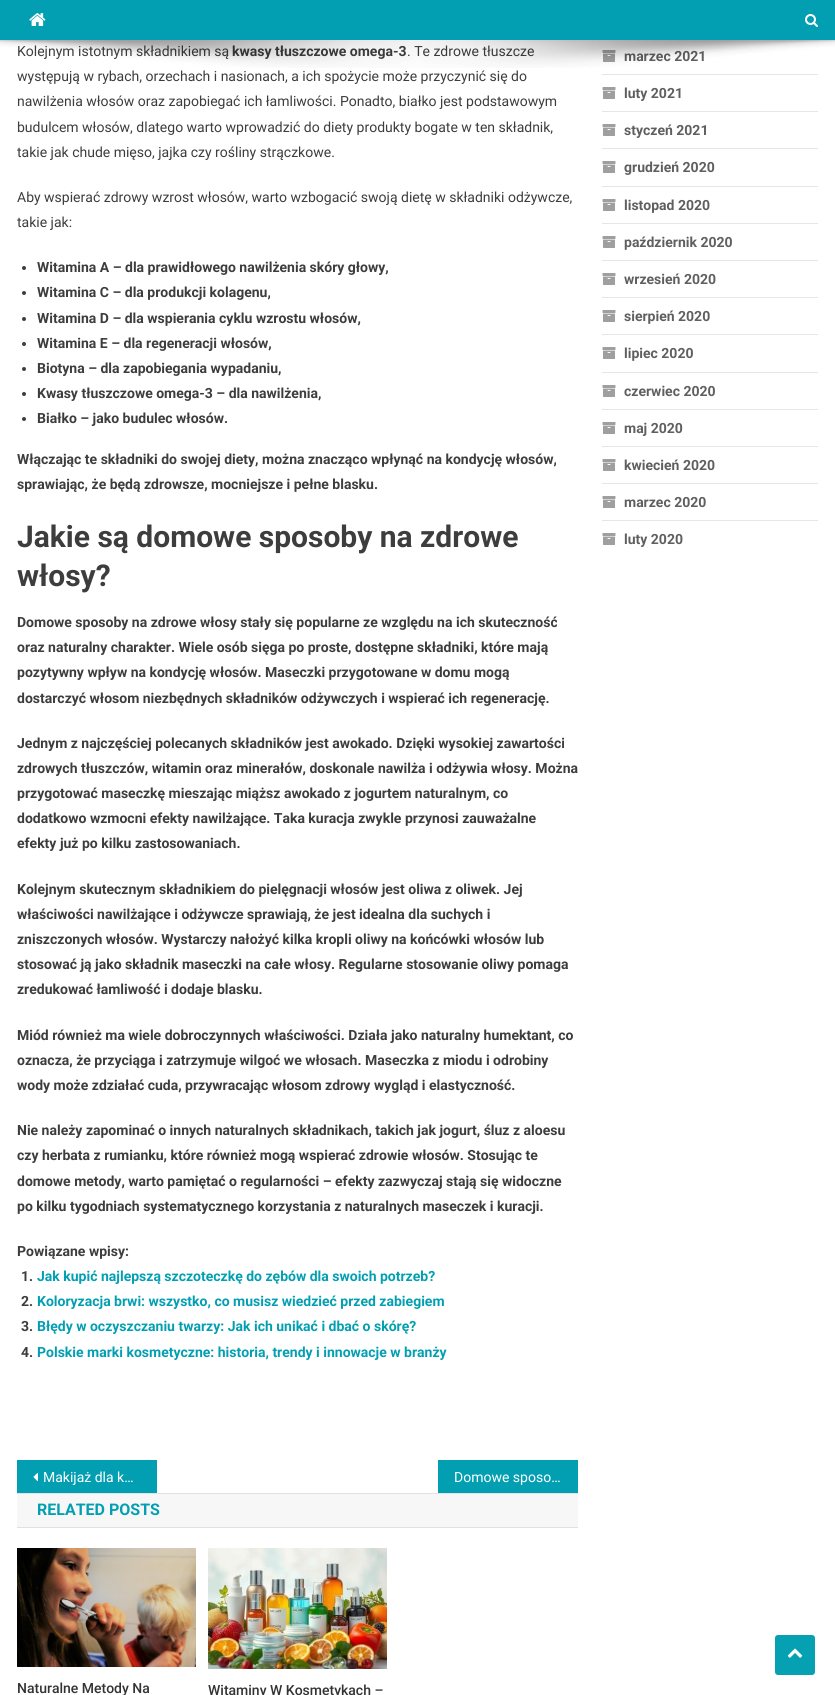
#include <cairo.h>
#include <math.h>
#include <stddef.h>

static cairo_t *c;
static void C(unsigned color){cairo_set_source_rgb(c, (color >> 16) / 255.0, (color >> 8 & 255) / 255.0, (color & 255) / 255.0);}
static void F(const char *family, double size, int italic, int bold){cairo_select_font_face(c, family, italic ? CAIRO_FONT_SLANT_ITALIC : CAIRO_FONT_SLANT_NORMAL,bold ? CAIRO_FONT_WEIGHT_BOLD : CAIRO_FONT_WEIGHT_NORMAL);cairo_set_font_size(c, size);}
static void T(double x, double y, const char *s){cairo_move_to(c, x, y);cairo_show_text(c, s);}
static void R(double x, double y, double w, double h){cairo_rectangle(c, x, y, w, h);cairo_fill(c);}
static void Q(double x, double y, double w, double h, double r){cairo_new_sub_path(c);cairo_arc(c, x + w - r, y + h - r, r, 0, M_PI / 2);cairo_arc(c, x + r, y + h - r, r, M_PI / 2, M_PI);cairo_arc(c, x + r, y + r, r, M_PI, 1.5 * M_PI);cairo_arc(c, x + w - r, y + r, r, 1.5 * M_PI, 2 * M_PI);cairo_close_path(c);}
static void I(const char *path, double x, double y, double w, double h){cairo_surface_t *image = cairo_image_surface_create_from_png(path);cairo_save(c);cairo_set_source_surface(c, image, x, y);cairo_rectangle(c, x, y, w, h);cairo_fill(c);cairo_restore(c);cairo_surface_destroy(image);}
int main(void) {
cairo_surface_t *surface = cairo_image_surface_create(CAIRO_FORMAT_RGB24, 835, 1695);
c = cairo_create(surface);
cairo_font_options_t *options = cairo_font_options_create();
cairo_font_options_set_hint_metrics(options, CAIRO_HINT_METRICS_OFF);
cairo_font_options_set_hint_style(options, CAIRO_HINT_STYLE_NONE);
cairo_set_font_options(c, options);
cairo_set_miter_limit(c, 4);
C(0xffffff);
cairo_paint(c);
C(0x029fb2);
R(0,0,835,40);
I("1.png",29,13,17,13);
I("2.png",805,14,13,13);
F("Roboto",14,0,0);
C(0x3d3d3d);
T(17,56,"Kolejnym istotnym składnikiem są");
F("Roboto",14,0,1);
T(232,56,"kwasy tłuszczowe omega-3");
F("Roboto",14,0,0);
T(407,56,". Te zdrowe tłuszcze");
I("7.png",602,50,14,12);
F("Roboto",14,0,1);
C(0x5f5f5f);
T(624,61,"marzec 2021");
I("3.png",0,40,835,28);
F("Roboto",14,0,0);
C(0x3d3d3d);
T(17,81,"występują w rybach, orzechach i nasionach, a ich spożycie może przyczynić się do");
T(17,106,"nawilżenia włosów oraz zapobiegać ich łamliwości. Ponadto, białko jest podstawowym");
T(17,132,"budulcem włosów, dlatego warto wprowadzić do diety produkty bogate w ten składnik,");
T(17,157,"takie jak chude mięso, jajka czy rośliny strączkowe.");
T(17,202,"Aby wspierać zdrowy wzrost włosów, warto wzbogacić swoją dietę w składniki odżywcze,");
T(17,227,"takie jak:");
cairo_new_path(c);
cairo_arc(c,24,268,2,0,2 * M_PI);
cairo_fill(c);
F("Roboto",14,0,1);
T(37,272,"Witamina A – dla prawidłowego nawilżenia skóry głowy,");
cairo_new_path(c);
cairo_arc(c,24,293,2,0,2 * M_PI);
cairo_fill(c);
T(37,297,"Witamina C – dla produkcji kolagenu,");
cairo_new_path(c);
cairo_arc(c,24,319,2,0,2 * M_PI);
cairo_fill(c);
T(37,323,"Witamina D – dla wspierania cyklu wzrostu włosów,");
cairo_new_path(c);
cairo_arc(c,24,344,2,0,2 * M_PI);
cairo_fill(c);
T(37,348,"Witamina E – dla regeneracji włosów,");
cairo_new_path(c);
cairo_arc(c,24,369,2,0,2 * M_PI);
cairo_fill(c);
T(37,373,"Biotyna – dla zapobiegania wypadaniu,");
cairo_new_path(c);
cairo_arc(c,24,394,2,0,2 * M_PI);
cairo_fill(c);
T(37,398,"Kwasy tłuszczowe omega-3 – dla nawilżenia,");
cairo_new_path(c);
cairo_arc(c,24,419,2,0,2 * M_PI);
cairo_fill(c);
T(37,423,"Białko – jako budulec włosów.");
T(17,464,"Włączając te składniki do swojej diety, można znacząco wpłynąć na kondycję włosów,");
T(17,489,"sprawiając, że będą zdrowsze, mocniejsze i pełne blasku.");
F("Roboto",30,0,1);
T(17,547,"Jakie są domowe sposoby na zdrowe");
T(17,586,"włosy?");
F("Roboto",14,0,1);
T(17,627,"Domowe sposoby na zdrowe włosy stały się popularne ze względu na ich skuteczność");
T(17,652,"oraz naturalny charakter. Wiele osób sięga po proste, dostępne składniki, które mają");
T(17,677,"pozytywny wpływ na kondycję włosów. Maseczki przygotowane w domu mogą");
T(17,703,"dostarczyć włosom niezbędnych składników odżywczych i wspierać ich regenerację.");
T(17,748,"Jednym z najczęściej polecanych składników jest awokado. Dzięki wysokiej zawartości");
T(17,773,"zdrowych tłuszczów, witamin oraz minerałów, doskonale nawilża i odżywia włosy. Można");
T(17,798,"przygotować maseczkę mieszając miąższ awokado z jogurtem naturalnym, co");
T(17,823,"dodatkowo wzmocni efekty nawilżające. Taka kuracja zwykle przynosi zauważalne");
T(17,848,"efekty już po kilku zastosowaniach.");
T(17,894,"Kolejnym skutecznym składnikiem do pielęgnacji włosów jest oliwa z oliwek. Jej");
T(17,919,"właściwości nawilżające i odżywcze sprawiają, że jest idealna dla suchych i");
T(17,944,"zniszczonych włosów. Wystarczy nałożyć kilka kropli oliwy na końcówki włosów lub");
T(17,969,"stosować ją jako składnik maseczki na całe włosy. Regularne stosowanie oliwy pomaga");
T(17,994,"zredukować łamliwość i dodaje blasku.");
T(17,1040,"Miód również ma wiele dobroczynnych właściwości. Działa jako naturalny humektant, co");
T(17,1065,"oznacza, że przyciąga i zatrzymuje wilgoć we włosach. Maseczka z miodu i odrobiny");
T(17,1090,"wody może zdziałać cuda, przywracając włosom zdrowy wygląd i elastyczność.");
T(17,1135,"Nie należy zapominać o innych naturalnych składnikach, takich jak jogurt, śluz z aloesu");
T(17,1160,"czy herbata z rumianku, które również mogą wspierać zdrowie włosów. Stosując te");
T(17,1186,"domowe metody, warto pamiętać o regularności – efekty zazwyczaj stają się widoczne");
T(17,1211,"po kilku tygodniach systematycznego korzystania z naturalnych maseczek i kuracji.");
T(17,1256,"Powiązane wpisy:");
T(21,1281,"1.");
C(0x029fb2);
T(37,1281,"Jak kupić najlepszą szczoteczkę do zębów dla swoich potrzeb?");
C(0x3d3d3d);
T(21,1306,"2.");
C(0x029fb2);
T(37,1306,"Koloryzacja brwi: wszystko, co musisz wiedzieć przed zabiegiem");
C(0x3d3d3d);
T(21,1331,"3.");
C(0x029fb2);
T(37,1331,"Błędy w oczyszczaniu twarzy: Jak ich unikać i dbać o skórę?");
C(0x3d3d3d);
T(21,1357,"4.");
C(0x029fb2);
T(37,1357,"Polskie marki kosmetyczne: historia, trendy i innowacje w branży");
R(17,1460,140,33);
I("4.png",33,1473,5,8);
F("Roboto",14,0,0);
C(0xffffff);
T(43,1482,"Makijaż dla k…");
C(0x029fb2);
R(438,1460,140,33);
C(0xffffff);
T(454,1482,"Domowe sposo…");
C(0xf7f7f7);
R(17,1494,561,33);
C(0xe1e1e1);
R(17,1493,561,1);
R(17,1527,561,1);
F("Roboto",16,0,1);
C(0x029fb2);
T(37,1515,"RELATED POSTS");
I("5.png",17,1548,179,119);
F("Roboto Medium",14,0,0);
C(0x333333);
T(17,1693,"Naturalne Metody Na");
I("6.png",208,1548,179,121);
T(208,1695,"Witaminy W Kosmetykach –");
C(0xe6e6e6);
R(602,74,216,1);
R(602,111,216,1);
I("7.png",602,87,14,12);
F("Roboto",14,0,1);
C(0x5f5f5f);
T(624,98,"luty 2021");
C(0xe6e6e6);
R(602,148,216,1);
I("7.png",602,124,14,12);
C(0x5f5f5f);
T(624,135,"styczeń 2021");
C(0xe6e6e6);
R(602,186,216,1);
I("7.png",602,161,14,12);
C(0x5f5f5f);
T(624,172,"grudzień 2020");
C(0xe6e6e6);
R(602,223,216,1);
I("7.png",602,199,14,12);
C(0x5f5f5f);
T(624,210,"listopad 2020");
C(0xe6e6e6);
R(602,260,216,1);
I("7.png",602,236,14,12);
C(0x5f5f5f);
T(624,247,"październik 2020");
C(0xe6e6e6);
R(602,297,216,1);
I("7.png",602,273,14,12);
C(0x5f5f5f);
T(624,284,"wrzesień 2020");
C(0xe6e6e6);
R(602,334,216,1);
I("7.png",602,310,14,12);
C(0x5f5f5f);
T(624,321,"sierpień 2020");
C(0xe6e6e6);
R(602,372,216,1);
I("7.png",602,347,14,12);
C(0x5f5f5f);
T(624,358,"lipiec 2020");
C(0xe6e6e6);
R(602,409,216,1);
I("7.png",602,385,14,12);
C(0x5f5f5f);
T(624,396,"czerwiec 2020");
C(0xe6e6e6);
R(602,446,216,1);
I("7.png",602,422,14,12);
C(0x5f5f5f);
T(624,433,"maj 2020");
C(0xe6e6e6);
R(602,483,216,1);
I("7.png",602,459,14,12);
C(0x5f5f5f);
T(624,470,"kwiecień 2020");
C(0xe6e6e6);
R(602,520,216,1);
I("7.png",602,496,14,12);
C(0x5f5f5f);
T(624,507,"marzec 2020");
I("7.png",602,533,14,12);
T(624,544,"luty 2020");
C(0x06a0b3);
Q(775,1635,40,40,3);
cairo_fill(c);
I("8.png",787,1648,16,10);
cairo_surface_write_to_png(surface, "o.png");
cairo_font_options_destroy(options);
cairo_destroy(c);
cairo_surface_destroy(surface);
return 0;
}
